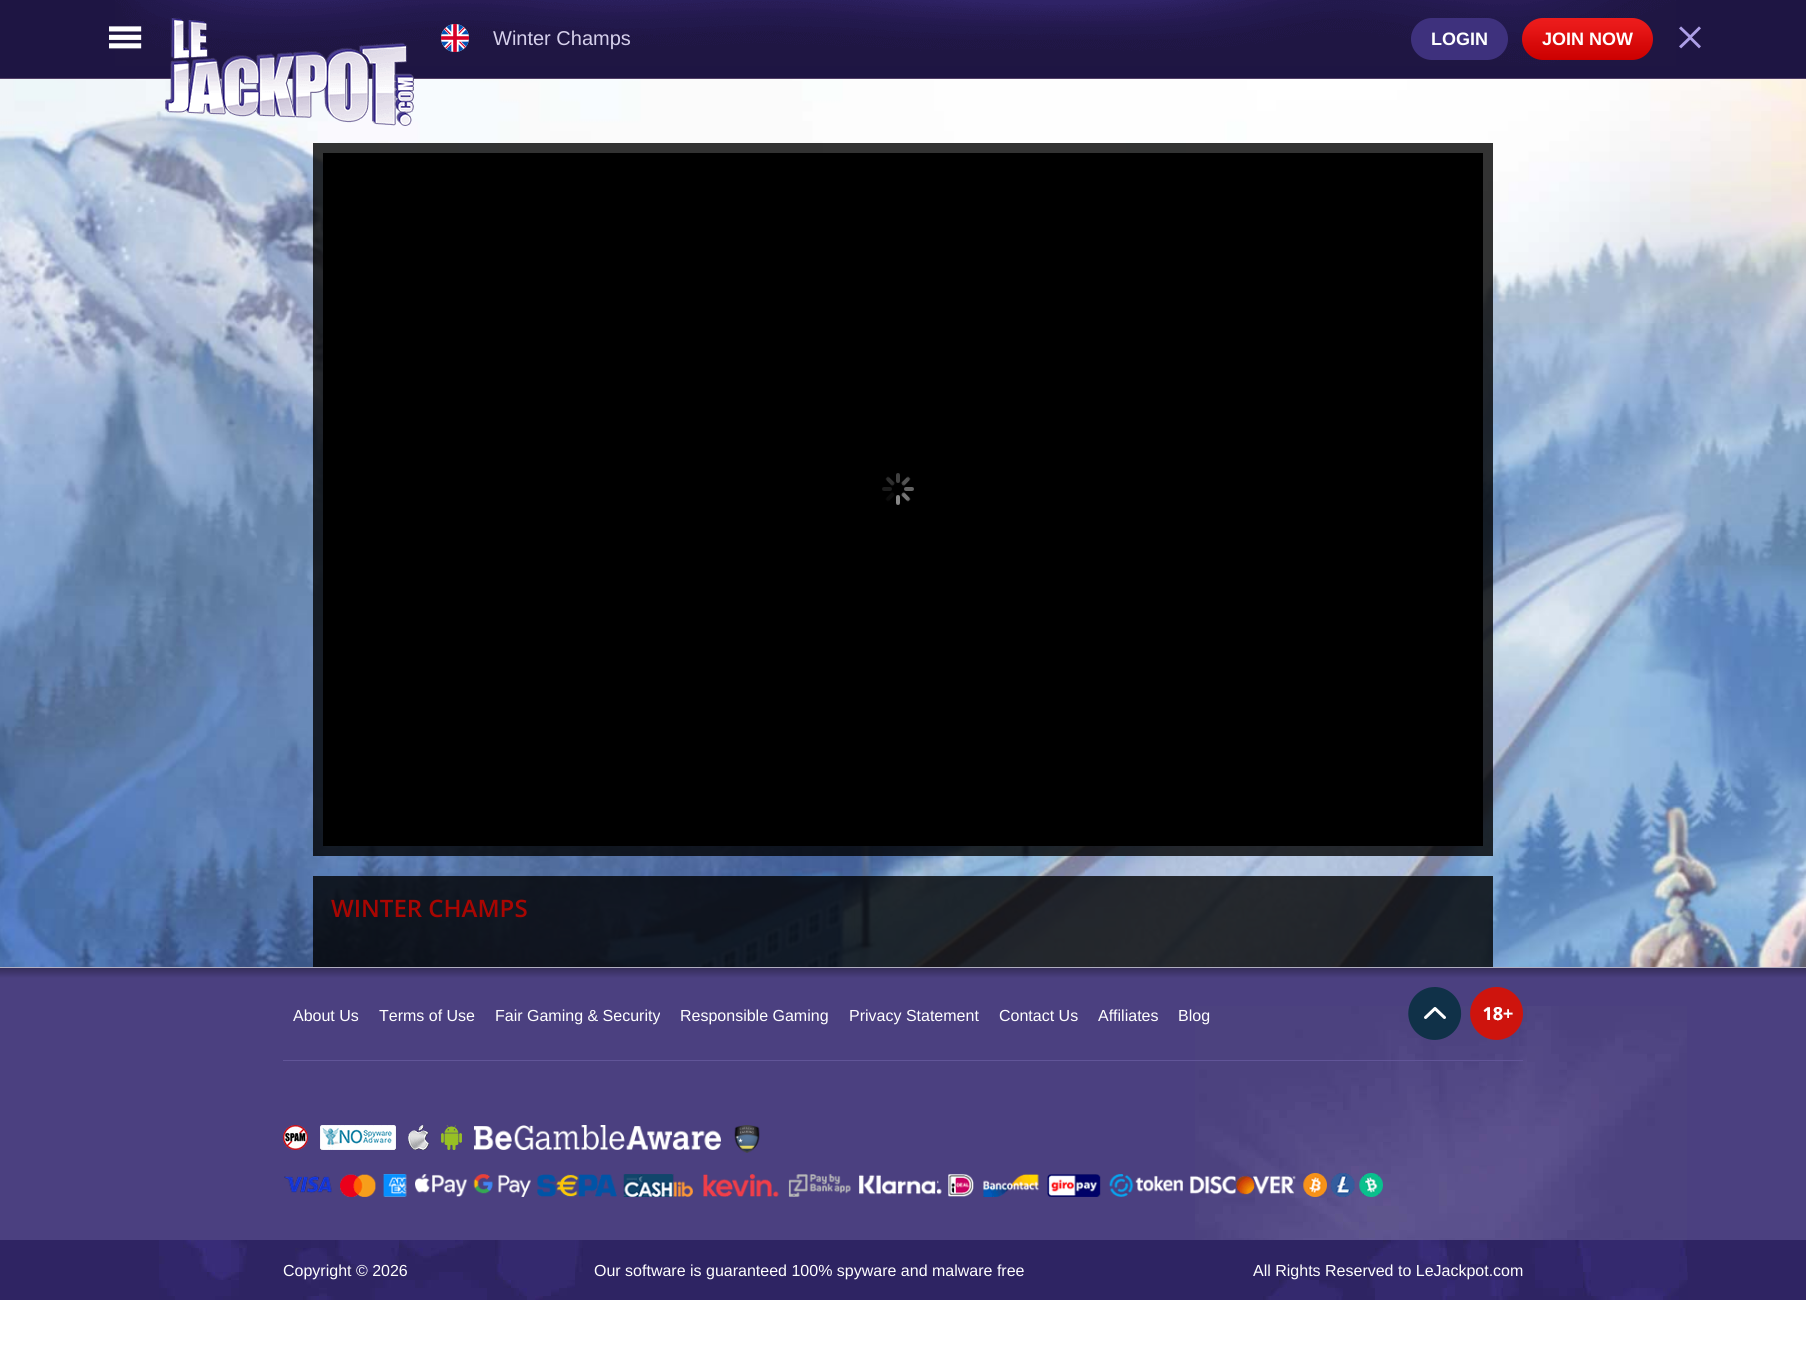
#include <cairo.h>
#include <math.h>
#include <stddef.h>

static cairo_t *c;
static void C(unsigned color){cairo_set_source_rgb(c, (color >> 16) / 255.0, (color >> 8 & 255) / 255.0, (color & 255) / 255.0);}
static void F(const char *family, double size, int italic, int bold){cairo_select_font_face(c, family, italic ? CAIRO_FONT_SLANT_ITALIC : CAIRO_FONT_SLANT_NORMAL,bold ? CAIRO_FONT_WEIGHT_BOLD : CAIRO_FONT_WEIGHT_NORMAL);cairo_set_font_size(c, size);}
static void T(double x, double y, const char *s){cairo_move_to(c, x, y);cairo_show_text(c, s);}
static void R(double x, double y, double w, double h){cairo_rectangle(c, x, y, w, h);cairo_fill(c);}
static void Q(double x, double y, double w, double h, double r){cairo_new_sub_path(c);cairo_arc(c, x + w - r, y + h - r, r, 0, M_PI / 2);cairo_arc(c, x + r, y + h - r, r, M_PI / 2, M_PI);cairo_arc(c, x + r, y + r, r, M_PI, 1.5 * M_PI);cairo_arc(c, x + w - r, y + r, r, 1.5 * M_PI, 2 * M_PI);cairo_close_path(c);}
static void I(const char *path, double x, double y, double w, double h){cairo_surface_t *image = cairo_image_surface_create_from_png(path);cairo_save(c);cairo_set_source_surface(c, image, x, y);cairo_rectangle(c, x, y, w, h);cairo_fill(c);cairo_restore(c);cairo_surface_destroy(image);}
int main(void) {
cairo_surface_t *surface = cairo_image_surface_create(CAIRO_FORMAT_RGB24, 1806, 1363);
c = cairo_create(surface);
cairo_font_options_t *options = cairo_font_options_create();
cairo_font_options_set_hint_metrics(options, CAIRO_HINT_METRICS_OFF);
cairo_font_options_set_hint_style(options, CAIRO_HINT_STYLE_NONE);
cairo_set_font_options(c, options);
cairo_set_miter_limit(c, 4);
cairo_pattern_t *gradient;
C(0xffffff);
cairo_paint(c);
I("1.png",0,79,1806,888);
C(0x1e1543);
R(0,0,1806,78);
I("3.png",115,0,1561,66);
F("Liberation Sans",20,0,0);
C(0xd5cfeb);
T(493,45,"Winter Champs");
I("2.png",1679,26,22,23);
C(0x534167);
R(0,78,1806,1);
I("4.png",165,17,249,109);
I("5.png",109,26,33,23);
I("6.png",441,24,28,28);
C(0x3e317d);
Q(1411,18,97,42,21);
cairo_fill(c);
F("Liberation Sans",18,0,1);
C(0xffffff);
T(1431,45,"LOGIN");
gradient = cairo_pattern_create_linear(1588,18,1588,60);
cairo_pattern_add_color_stop_rgba(gradient,0,0.929,0.11,0.11,1);
cairo_pattern_add_color_stop_rgba(gradient,.21,0.91,0.094,0.094,1);
cairo_pattern_add_color_stop_rgba(gradient,.62,0.847,0.039,0.039,1);
cairo_pattern_add_color_stop_rgba(gradient,1,0.8,0,0,1);
cairo_set_source(c,gradient);
cairo_pattern_destroy(gradient);
Q(1522,18,131,42,21);
cairo_fill(c);
C(0xffffff);
T(1542,45,"JOIN NOW");
cairo_set_source_rgba(c,0,0,0,0.8);
R(313,143,1180,713);
I("7.png",323,153,1160,675);
C(0x000000);
R(323,828,1160,18);
cairo_set_source_rgba(c,0,0,0,0.8);
R(313,876,1180,91);
F("Open Sans SemiBold",24,0,0);
C(0xa80602);
T(331,917,"WINTER CHAMPS");
C(0x4b4080);
R(0,978,1806,262);
I("8.png",1195,1006,492,234);
C(0xb0adc0);
R(0,967,1806,1);
gradient = cairo_pattern_create_linear(903,968,903,978);
cairo_pattern_add_color_stop_rgba(gradient,0,0.208,0.176,0.353,1);
cairo_pattern_add_color_stop_rgba(gradient,1,0.294,0.251,0.502,1);
cairo_set_source(c,gradient);
cairo_pattern_destroy(gradient);
R(0,968,1806,10);
C(0x615598);
R(283,1060,1240,1);
F("Liberation Sans",16,0,0);
C(0xffffff);
T(293,1021,"About Us");
T(379,1021,"Terms of Use");
T(495,1021,"Fair Gaming & Security");
T(680,1021,"Responsible Gaming");
T(849,1021,"Privacy Statement");
T(999,1021,"Contact Us");
T(1098,1021,"Affiliates");
T(1178,1021,"Blog");
I("9.png",1408,987,54,53);
I("10.png",1470,987,53,53);
I("11.png",283,1125,25,25);
I("12.png",320,1125,76,25);
I("13.png",408,1125,21,25);
I("14.png",441,1125,21,25);
I("15.png",474,1125,247,25);
I("16.png",734,1125,26,28);
I("17.png",284,1173,1099,24);
C(0x2f2463);
R(0,1240,1806,60);
I("18.png",159,1240,1529,60);
C(0xffffff);
T(283,1276,"Copyright © 2026");
T(594,1276,"Our software is guaranteed 100% spyware and malware free");
T(1253,1276,"All Rights Reserved to LeJackpot.com");
cairo_surface_write_to_png(surface, "o.png");
cairo_font_options_destroy(options);
cairo_destroy(c);
cairo_surface_destroy(surface);
return 0;
}
